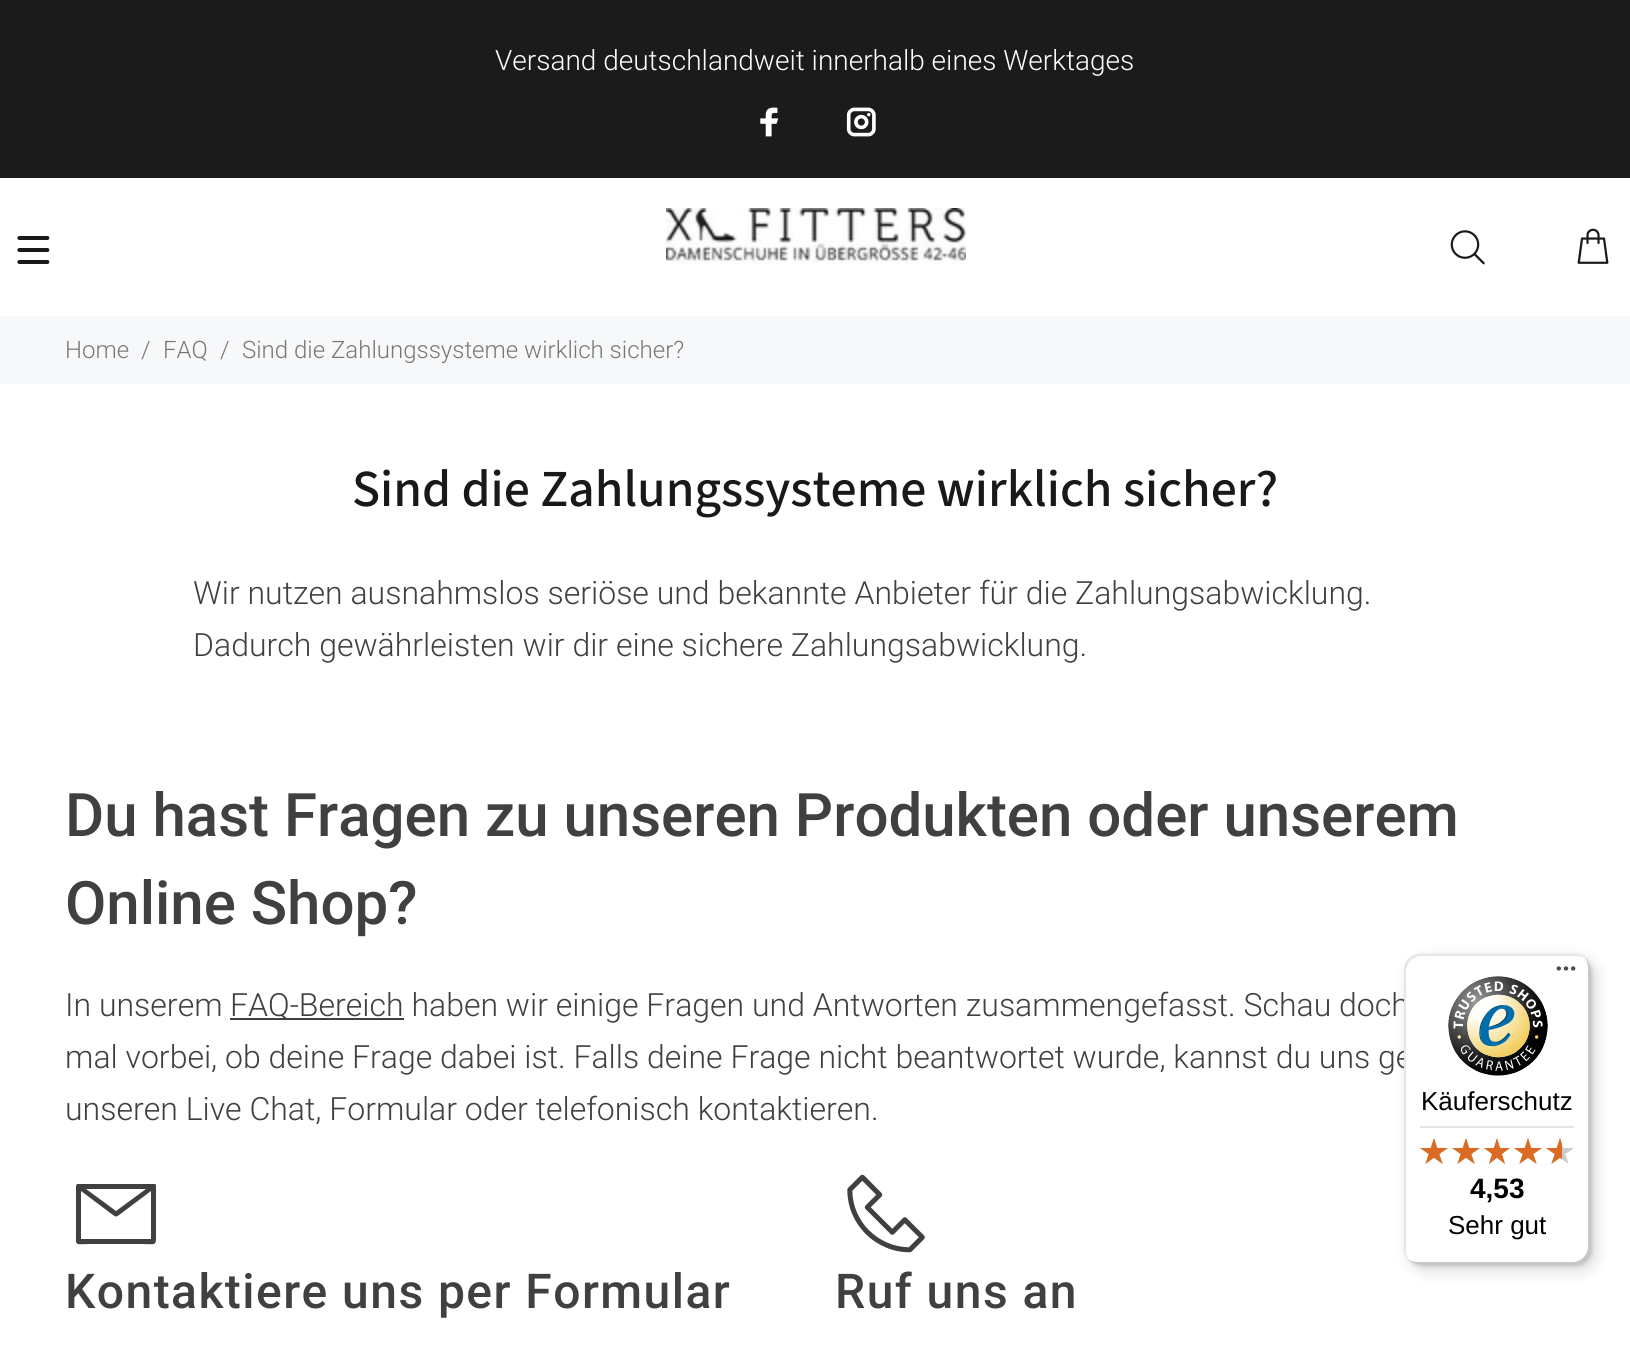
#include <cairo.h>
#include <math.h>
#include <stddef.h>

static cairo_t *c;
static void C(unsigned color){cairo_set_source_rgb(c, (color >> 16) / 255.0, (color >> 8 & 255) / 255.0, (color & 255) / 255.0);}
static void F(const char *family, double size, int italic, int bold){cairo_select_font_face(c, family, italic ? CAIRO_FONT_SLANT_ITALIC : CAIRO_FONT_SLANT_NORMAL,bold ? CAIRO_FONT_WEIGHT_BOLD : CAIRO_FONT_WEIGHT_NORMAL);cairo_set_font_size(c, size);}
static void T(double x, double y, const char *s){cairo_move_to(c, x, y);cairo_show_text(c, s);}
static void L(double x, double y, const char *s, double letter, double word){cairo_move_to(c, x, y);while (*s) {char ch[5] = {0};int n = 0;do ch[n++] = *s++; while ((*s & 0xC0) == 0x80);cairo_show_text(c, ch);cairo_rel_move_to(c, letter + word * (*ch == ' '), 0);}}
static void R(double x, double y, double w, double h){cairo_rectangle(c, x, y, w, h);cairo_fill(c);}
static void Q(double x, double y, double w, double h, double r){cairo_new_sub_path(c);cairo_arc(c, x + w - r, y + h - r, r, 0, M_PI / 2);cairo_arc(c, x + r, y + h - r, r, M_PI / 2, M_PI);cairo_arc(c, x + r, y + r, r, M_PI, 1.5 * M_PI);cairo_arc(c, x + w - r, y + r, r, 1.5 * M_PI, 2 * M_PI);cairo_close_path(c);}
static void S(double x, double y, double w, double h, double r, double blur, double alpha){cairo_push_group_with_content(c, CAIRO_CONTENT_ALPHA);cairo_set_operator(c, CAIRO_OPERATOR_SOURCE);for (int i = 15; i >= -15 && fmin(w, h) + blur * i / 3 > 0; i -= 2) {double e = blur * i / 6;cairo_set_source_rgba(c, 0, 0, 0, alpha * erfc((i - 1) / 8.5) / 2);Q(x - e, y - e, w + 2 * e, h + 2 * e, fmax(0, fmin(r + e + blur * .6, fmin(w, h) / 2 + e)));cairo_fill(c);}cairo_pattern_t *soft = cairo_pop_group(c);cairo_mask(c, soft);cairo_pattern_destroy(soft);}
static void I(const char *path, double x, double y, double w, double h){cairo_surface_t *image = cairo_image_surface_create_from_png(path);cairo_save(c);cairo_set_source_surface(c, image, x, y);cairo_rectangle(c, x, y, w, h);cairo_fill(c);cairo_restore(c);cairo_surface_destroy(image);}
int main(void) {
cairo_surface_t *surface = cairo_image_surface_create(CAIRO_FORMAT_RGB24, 1630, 1372);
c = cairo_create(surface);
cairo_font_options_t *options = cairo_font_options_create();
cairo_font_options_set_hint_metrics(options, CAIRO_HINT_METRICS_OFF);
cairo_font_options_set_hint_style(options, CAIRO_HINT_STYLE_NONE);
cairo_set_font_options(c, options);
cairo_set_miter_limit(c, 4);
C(0xffffff);
cairo_paint(c);
C(0x1b1b1b);
R(0,0,1630,178);
F("Roboto Light",28,0,0);
C(0xffffff);
T(495,70,"Versand deutschlandweit innerhalb eines Werktages");
I("1.png",760,107,19,30);
I("2.png",846,107,30,30);
I("3.png",17,236,33,28);
I("4.png",666,208,300,56);
I("5.png",1450,230,35,35);
I("6.png",1577,228,32,36);
C(0xf7f8fa);
R(0,316,1630,68);
F("Roboto Light",24,0,0);
C(0x777777);
T(65,358,"Home");
T(141,358,"/");
T(163,358,"FAQ");
T(220,358,"/");
T(242,358,"Sind die Zahlungssysteme wirklich sicher?");
F("Source Sans Pro Medium",52,0,0);
C(0x191919);
T(352,506,"Sind die Zahlungssysteme wirklich sicher?");
F("Roboto Light",32,0,0);
C(0x404040);
T(193,604,"Wir nutzen ausnahmslos seriöse und bekannte Anbieter für die Zahlungsabwicklung.");
T(193,656,"Dadurch gewährleisten wir dir eine sichere Zahlungsabwicklung.");
F("Roboto Medium",60,0,0);
T(65,836,"Du hast Fragen zu unseren Produkten oder unserem");
T(65,924,"Online Shop?");
F("Roboto Light",32,0,0);
T(65,1016,"In unserem");
R(230,1018,174,2);
T(230,1016,"FAQ-Bereich haben wir einige Fragen und Antworten zusammengefasst. Schau doch");
T(65,1068,"mal vorbei, ob deine Frage dabei ist. Falls deine Frage nicht beantwortet wurde, kannst du uns ge");
T(65,1120,"unseren Live Chat, Formular oder telefonisch kontaktieren.");
cairo_new_path(c);
cairo_move_to(c,156,1185);
cairo_line_to(c,156,1232);
cairo_curve_to(c,156,1247,157,1244,141,1244);
cairo_line_to(c,91,1244);
cairo_curve_to(c,74,1244,76,1247,76,1232);
cairo_line_to(c,76,1186);
cairo_line_to(c,77,1184);
cairo_line_to(c,78,1184);
cairo_line_to(c,153,1184);
cairo_line_to(c,155,1184);
cairo_close_path(c);
cairo_move_to(c,151,1239);
cairo_line_to(c,151,1191);
cairo_line_to(c,123,1212);
cairo_curve_to(c,115,1218,117,1218,109,1212);
cairo_line_to(c,81,1191);
cairo_line_to(c,81,1239);
cairo_close_path(c);
cairo_move_to(c,86,1189);
cairo_line_to(c,116,1211);
cairo_line_to(c,146,1189);
cairo_close_path(c);
cairo_fill(c);
F("Roboto Medium",48,0,0);
L(65,1308,"Kontaktiere uns per Formular",1.45,0);
I("7.png",847,1174,78,79);
L(835,1308,"Ruf uns an",1.45,0);
C(0x000000);
S(1410,960,186,310,16,8,.15);
S(1406,956,186,310,16,2,.15);
C(0xffffff);
Q(1404,954,186,310,16);
cairo_fill(c);
cairo_set_source_rgba(c,0,0,0,0.1);
cairo_new_path(c);
cairo_move_to(c,1422,956);
cairo_line_to(c,1576,956);
cairo_curve_to(c,1580,956,1583,957,1586,959);
cairo_curve_to(c,1583,956,1579,954,1574,954);
cairo_line_to(c,1420,954);
cairo_curve_to(c,1411,954,1404,961,1404,970);
cairo_line_to(c,1404,1248);
cairo_curve_to(c,1404,1253,1406,1257,1409,1260);
cairo_curve_to(c,1407,1257,1406,1254,1406,1250);
cairo_line_to(c,1406,972);
cairo_curve_to(c,1406,963,1413,956,1422,956);
cairo_close_path(c);
cairo_fill(c);
cairo_set_source_rgba(c,0,0,0,0.2);
cairo_new_path(c);
cairo_move_to(c,1408,1259);
cairo_curve_to(c,1411,1262,1415,1264,1420,1264);
cairo_line_to(c,1574,1264);
cairo_curve_to(c,1583,1264,1590,1257,1590,1248);
cairo_line_to(c,1590,970);
cairo_curve_to(c,1590,965,1588,961,1585,958);
cairo_curve_to(c,1587,961,1588,964,1588,968);
cairo_line_to(c,1588,1246);
cairo_curve_to(c,1588,1255,1581,1262,1572,1262);
cairo_line_to(c,1418,1262);
cairo_curve_to(c,1414,1262,1411,1261,1408,1259);
cairo_close_path(c);
cairo_fill(c);
cairo_set_source_rgba(c,0.196,0.196,0.196,0.2);
cairo_new_path(c);
cairo_move_to(c,1409,1259);
cairo_curve_to(c,1412,1262,1416,1264,1420,1264);
cairo_line_to(c,1574,1264);
cairo_curve_to(c,1583,1264,1590,1257,1590,1248);
cairo_line_to(c,1590,970);
cairo_curve_to(c,1590,966,1588,962,1585,959);
cairo_curve_to(c,1588,962,1589,965,1589,969);
cairo_line_to(c,1589,1247);
cairo_curve_to(c,1589,1256,1582,1263,1573,1263);
cairo_line_to(c,1419,1263);
cairo_curve_to(c,1415,1263,1412,1262,1409,1259);
cairo_close_path(c);
cairo_fill(c);
cairo_set_source_rgba(c,1,1,1,0.3);
cairo_new_path(c);
cairo_move_to(c,1409,1259);
cairo_curve_to(c,1412,1262,1416,1264,1420,1264);
cairo_line_to(c,1574,1264);
cairo_curve_to(c,1583,1264,1590,1257,1590,1248);
cairo_line_to(c,1590,970);
cairo_curve_to(c,1590,966,1588,962,1585,959);
cairo_curve_to(c,1588,962,1589,965,1589,969);
cairo_line_to(c,1589,1247);
cairo_curve_to(c,1589,1256,1582,1263,1573,1263);
cairo_line_to(c,1419,1263);
cairo_curve_to(c,1415,1263,1412,1262,1409,1259);
cairo_close_path(c);
cairo_fill(c);
I("8.png",1556,966,20,5);
I("9.png",1448,976,100,100);
F("Liberation Sans",26,0,0);
C(0x000000);
T(1421,1110,"Käuferschutz");
C(0xe5e5e5);
R(1420,1126,154,2);
I("10.png",1420,1138,28,26);
I("10.png",1452,1138,28,26);
I("11.png",1484,1138,26,26);
I("10.png",1514,1138,28,26);
I("10.png",1546,1138,28,26);
I("12.png",1420,1138,28,26);
I("12.png",1452,1138,28,26);
I("13.png",1484,1138,26,26);
I("12.png",1514,1138,28,26);
I("14.png",1546,1138,16,26);
F("Liberation Sans",28,0,1);
C(0x000000);
T(1470,1198,"4,53");
F("Liberation Sans",26,0,0);
T(1448,1234,"Sehr gut");
cairo_surface_write_to_png(surface, "o.png");
cairo_font_options_destroy(options);
cairo_destroy(c);
cairo_surface_destroy(surface);
return 0;
}
